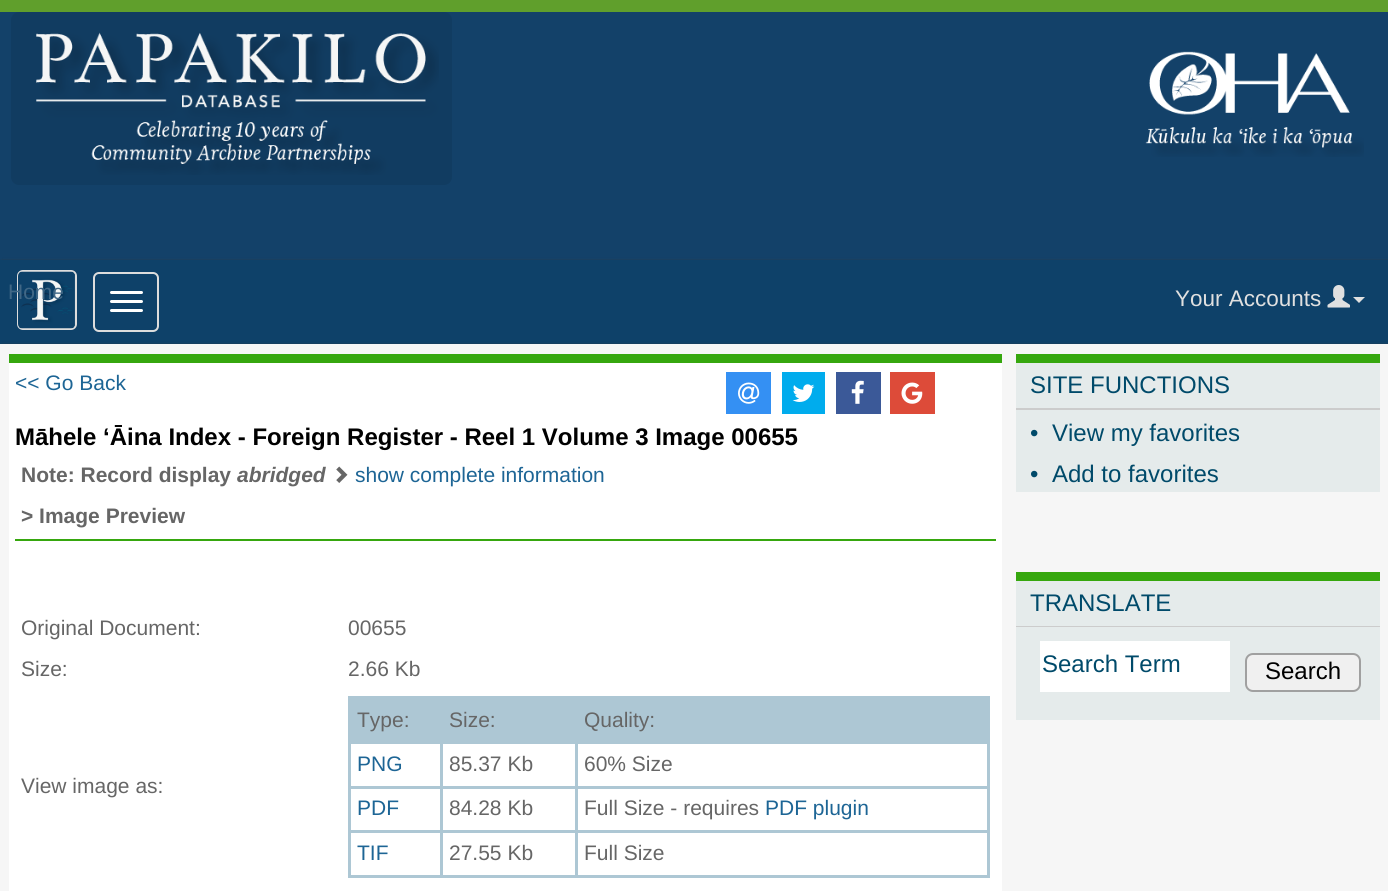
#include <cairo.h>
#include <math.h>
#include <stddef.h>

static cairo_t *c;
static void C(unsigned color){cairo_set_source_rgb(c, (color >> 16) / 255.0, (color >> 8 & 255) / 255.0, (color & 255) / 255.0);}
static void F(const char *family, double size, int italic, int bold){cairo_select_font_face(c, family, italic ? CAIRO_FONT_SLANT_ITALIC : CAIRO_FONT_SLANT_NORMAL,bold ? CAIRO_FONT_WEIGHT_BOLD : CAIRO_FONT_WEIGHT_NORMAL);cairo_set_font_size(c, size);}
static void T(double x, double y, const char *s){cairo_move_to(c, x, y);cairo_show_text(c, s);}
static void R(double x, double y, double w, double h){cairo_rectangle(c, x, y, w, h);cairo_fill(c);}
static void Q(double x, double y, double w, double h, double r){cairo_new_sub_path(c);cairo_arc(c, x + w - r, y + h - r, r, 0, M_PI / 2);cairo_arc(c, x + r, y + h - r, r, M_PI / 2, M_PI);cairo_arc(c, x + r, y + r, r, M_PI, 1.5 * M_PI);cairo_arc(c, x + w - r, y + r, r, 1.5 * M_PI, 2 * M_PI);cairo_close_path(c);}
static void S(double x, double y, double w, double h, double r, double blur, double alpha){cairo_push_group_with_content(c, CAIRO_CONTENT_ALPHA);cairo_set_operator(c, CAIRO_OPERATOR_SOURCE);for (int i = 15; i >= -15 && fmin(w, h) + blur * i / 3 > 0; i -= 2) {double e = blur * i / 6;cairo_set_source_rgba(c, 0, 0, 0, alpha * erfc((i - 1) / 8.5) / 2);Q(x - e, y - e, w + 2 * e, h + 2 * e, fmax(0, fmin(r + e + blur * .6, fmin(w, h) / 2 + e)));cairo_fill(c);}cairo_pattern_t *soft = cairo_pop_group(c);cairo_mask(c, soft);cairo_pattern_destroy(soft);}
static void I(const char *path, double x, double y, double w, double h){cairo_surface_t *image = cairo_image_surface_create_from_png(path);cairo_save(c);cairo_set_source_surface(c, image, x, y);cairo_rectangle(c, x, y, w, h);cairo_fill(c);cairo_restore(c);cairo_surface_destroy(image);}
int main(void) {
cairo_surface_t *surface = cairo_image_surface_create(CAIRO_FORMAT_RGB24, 1388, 891);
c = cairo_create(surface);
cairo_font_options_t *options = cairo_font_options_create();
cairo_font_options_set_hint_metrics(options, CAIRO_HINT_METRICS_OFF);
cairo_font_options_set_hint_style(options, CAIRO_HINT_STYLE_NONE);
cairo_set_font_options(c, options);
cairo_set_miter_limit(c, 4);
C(0x134169);
cairo_paint(c);
C(0x609f2c);
R(0,0,1388,12);
C(0x113c61);
Q(11,12,441,173,8);
cairo_fill(c);
I("1.png",36,32,403,143);
I("2.png",1145,51,219,106);
C(0x333333);
S(2,261,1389,84,0,1.5,1);
C(0x0e4169);
R(0,260,1388,84);
Q(18,271,58,58,5);
C(0xdddddd);
cairo_stroke(c);
I("3.png",18,271,57,58);
F("Liberation Sans",21,0,0);
C(0x416886);
T(8,299,"Home");
Q(94,273,64,58,5);
C(0xdddddd);
cairo_stroke(c);
C(0xffffff);
Q(110,291,33,3,1.5);
cairo_fill(c);
Q(110,300,33,3,1.5);
cairo_fill(c);
Q(110,309,33,3,1.5);
cairo_fill(c);
F("Liberation Sans",22.5,0,0);
C(0xe0e0e0);
T(1175,306,"Your Accounts");
I("4.png",1327,285,23,23);
cairo_new_path(c);
cairo_move_to(c,1353,297);
cairo_line_to(c,1365,297);
cairo_line_to(c,1359,303);
cairo_close_path(c);
cairo_fill(c);
C(0x333333);
S(2,345,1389,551,0,1.5,1);
C(0xf6f6f6);
R(0,344,1388,547);
C(0xffffff);
R(9,363,993,528);
C(0x36a70e);
R(9,354,993,9);
F("Liberation Sans",21,0,0);
C(0x1d6595);
T(15,390,"<< Go Back");
C(0x3490f3);
R(726,372,45,42);
I("5.png",738,382,22,22);
C(0x00aced);
R(782,372,43,42);
I("6.png",792,384,23,18);
C(0x3b5998);
R(836,372,45,42);
I("7.png",851,380,13,24);
C(0xdd4b39);
R(890,372,45,42);
I("8.png",901,382,22,22);
F("Liberation Sans",24,0,1);
C(0x000000);
T(15,445,"Māhele ʻĀina Index - Foreign Register - Reel 1 Volume 3 Image 00655");
F("Liberation Sans",21,0,1);
C(0x666666);
T(21,482,"Note: Record display");
F("Liberation Sans",21,1,1);
T(237,482,"abridged");
I("9.png",336,466,12,17);
F("Liberation Sans",21,0,0);
C(0x1d6595);
T(355,482,"show complete information");
C(0x36a70e);
R(15,539,981,2);
F("Liberation Sans",21,0,1);
C(0x666666);
T(21,523,"> Image Preview");
F("Liberation Sans",21,0,0);
T(21,635,"Original Document:");
T(348,635,"00655");
T(21,676,"Size:");
T(348,676,"2.66 Kb");
T(21,793,"View image as:");
C(0xadc7d4);
R(348,696,642,182);
C(0x666666);
T(357,727,"Type:");
T(449,727,"Size:");
T(584,727,"Quality:");
C(0xffffff);
R(351,744,89,42);
C(0x1d6595);
T(357,771,"PNG");
C(0xffffff);
R(443,744,132,42);
C(0x666666);
T(449,771,"85.37 Kb");
C(0xffffff);
R(578,744,409,42);
C(0x666666);
T(584,771,"60% Size");
C(0xffffff);
R(351,789,89,41);
C(0x1d6595);
T(357,815,"PDF");
C(0xffffff);
R(443,789,132,41);
C(0x666666);
T(449,815,"84.28 Kb");
C(0xffffff);
R(578,789,409,41);
C(0x666666);
T(584,815,"Full Size - requires");
C(0x1d6595);
T(765,815,"PDF plugin");
C(0xffffff);
R(351,833,89,42);
C(0x1d6595);
T(357,860,"TIF");
C(0xffffff);
R(443,833,132,42);
C(0x666666);
T(449,860,"27.55 Kb");
C(0xffffff);
R(578,833,409,42);
C(0x666666);
T(584,860,"Full Size");
C(0x36a70e);
R(1016,354,364,9);
C(0xe5ebeb);
R(1016,363,364,45);
C(0xcccccc);
R(1016,408,364,2);
F("Liberation Sans",24,0,0);
C(0x004a6a);
T(1030,393,"SITE FUNCTIONS");
C(0xe5ebeb);
R(1016,410,364,82);
C(0x004a6a);
T(1030,441,"•");
T(1052,441,"View my favorites");
T(1030,482,"•");
T(1052,482,"Add to favorites");
C(0x36a70e);
R(1016,572,364,9);
C(0xe5ebeb);
R(1016,581,364,45);
C(0xcccccc);
R(1016,626,364,1);
C(0x004a6a);
T(1030,611,"TRANSLATE");
C(0xe5ebeb);
R(1016,627,364,93);
C(0xffffff);
R(1040,641,190,51);
C(0x004a6a);
T(1042,672,"Search Term");
C(0xf0f0f0);
Q(1246,654,114,37,7);
cairo_fill_preserve(c);
C(0xa0a0a0);
cairo_stroke(c);
C(0x000000);
T(1265,679,"Search");
cairo_surface_write_to_png(surface, "o.png");
cairo_font_options_destroy(options);
cairo_destroy(c);
cairo_surface_destroy(surface);
return 0;
}
